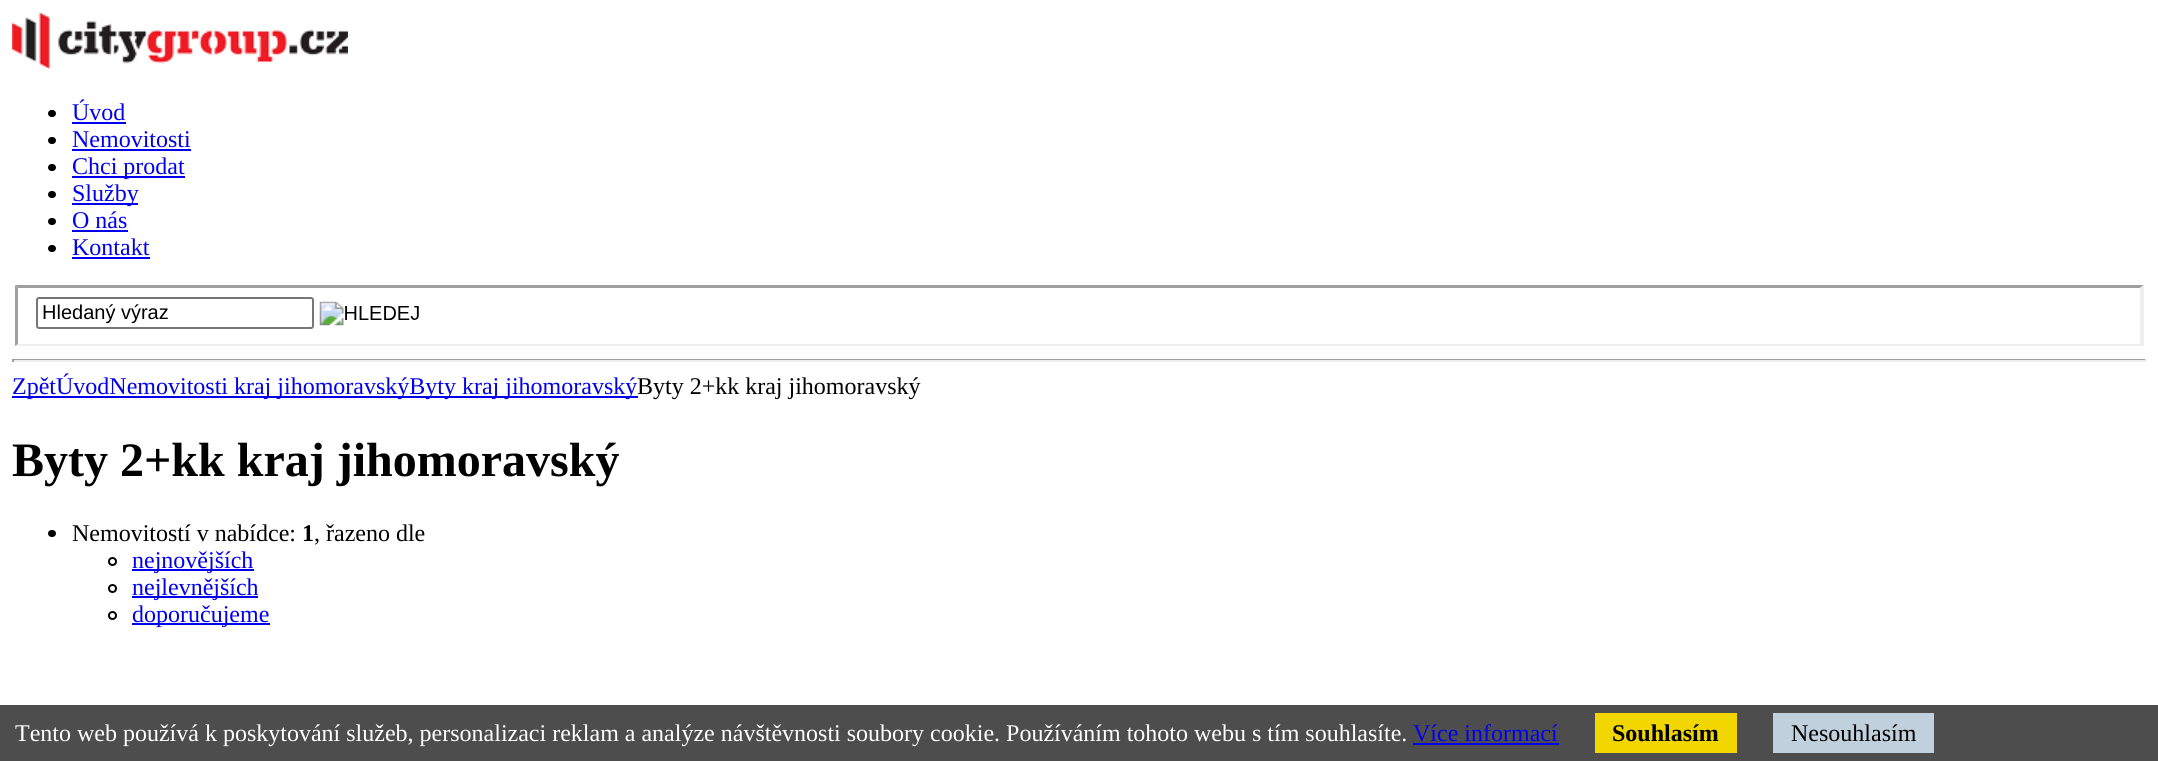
#include <cairo.h>
#include <math.h>
#include <stddef.h>

static cairo_t *c;
static void C(unsigned color){cairo_set_source_rgb(c, (color >> 16) / 255.0, (color >> 8 & 255) / 255.0, (color & 255) / 255.0);}
static void F(const char *family, double size, int italic, int bold){cairo_select_font_face(c, family, italic ? CAIRO_FONT_SLANT_ITALIC : CAIRO_FONT_SLANT_NORMAL,bold ? CAIRO_FONT_WEIGHT_BOLD : CAIRO_FONT_WEIGHT_NORMAL);cairo_set_font_size(c, size);}
static void T(double x, double y, const char *s){cairo_move_to(c, x, y);cairo_show_text(c, s);}
static void R(double x, double y, double w, double h){cairo_rectangle(c, x, y, w, h);cairo_fill(c);}
static void Q(double x, double y, double w, double h, double r){cairo_new_sub_path(c);cairo_arc(c, x + w - r, y + h - r, r, 0, M_PI / 2);cairo_arc(c, x + r, y + h - r, r, M_PI / 2, M_PI);cairo_arc(c, x + r, y + r, r, M_PI, 1.5 * M_PI);cairo_arc(c, x + w - r, y + r, r, 1.5 * M_PI, 2 * M_PI);cairo_close_path(c);}
static void I(const char *path, double x, double y, double w, double h){cairo_surface_t *image = cairo_image_surface_create_from_png(path);cairo_save(c);cairo_set_source_surface(c, image, x, y);cairo_rectangle(c, x, y, w, h);cairo_fill(c);cairo_restore(c);cairo_surface_destroy(image);}
int main(void) {
cairo_surface_t *surface = cairo_image_surface_create(CAIRO_FORMAT_RGB24, 2158, 761);
c = cairo_create(surface);
cairo_font_options_t *options = cairo_font_options_create();
cairo_font_options_set_hint_metrics(options, CAIRO_HINT_METRICS_OFF);
cairo_font_options_set_hint_style(options, CAIRO_HINT_STYLE_NONE);
cairo_set_font_options(c, options);
cairo_set_miter_limit(c, 4);
C(0xffffff);
cairo_paint(c);
I("1.png",12,12,336,57);
C(0x000000);
Q(48,110,8,7,3.5);
cairo_fill(c);
F("Liberation Serif",24,0,0);
C(0x0000ee);
T(72,120,"Úvod");
R(72,122,54,2);
C(0x000000);
Q(48,137,8,7,3.5);
cairo_fill(c);
C(0x0000ee);
T(72,147,"Nemovitosti");
R(72,149,119,2);
C(0x000000);
Q(48,164,8,7,3.5);
cairo_fill(c);
C(0x0000ee);
R(72,176,113,2);
T(72,174,"Chci prodat");
C(0x000000);
Q(48,191,8,7,3.5);
cairo_fill(c);
C(0x0000ee);
R(72,203,66,2);
T(72,201,"Služby");
C(0x000000);
Q(48,218,8,7,3.5);
cairo_fill(c);
C(0x0000ee);
T(72,228,"O nás");
R(72,230,56,2);
C(0x000000);
Q(48,245,8,7,3.5);
cairo_fill(c);
C(0x0000ee);
T(72,255,"Kontakt");
R(72,257,78,2);
C(0x9f9f9f);
cairo_new_path(c);
cairo_move_to(c,15,285);
cairo_line_to(c,2144,285);
cairo_line_to(c,2140,288);
cairo_line_to(c,18,288);
cairo_close_path(c);
cairo_fill(c);
C(0xefefef);
cairo_new_path(c);
cairo_move_to(c,2144,285);
cairo_line_to(c,2144,346);
cairo_line_to(c,2140,344);
cairo_line_to(c,2140,288);
cairo_close_path(c);
cairo_fill(c);
cairo_new_path(c);
cairo_move_to(c,2144,346);
cairo_line_to(c,15,346);
cairo_line_to(c,18,344);
cairo_line_to(c,2140,344);
cairo_close_path(c);
cairo_fill(c);
C(0x9f9f9f);
cairo_new_path(c);
cairo_move_to(c,15,346);
cairo_line_to(c,15,285);
cairo_line_to(c,18,288);
cairo_line_to(c,18,344);
cairo_close_path(c);
cairo_fill(c);
Q(37,298,276,30,2);
C(0x767676);
cairo_stroke(c);
F("Liberation Sans",20,0,0);
C(0x000000);
T(42,319,"Hledaný výraz");
I("2.png",319,301,100,25);
C(0x9f9f9f);
R(12,359,2135,1);
C(0xeeeeee);
R(2145,359,2,3);
R(12,360,2135,2);
C(0x9f9f9f);
R(12,359,2,3);
C(0x0000ee);
R(12,396,626,2);
F("Liberation Serif",24,0,0);
T(12,394,"ZpětÚvodNemovitosti kraj jihomoravskýByty kraj jihomoravský");
C(0x000000);
T(637,394,"Byty 2+kk kraj jihomoravský");
F("Liberation Serif",48,0,1);
T(12,476,"Byty 2+kk kraj jihomoravský");
Q(48,530,8,7,3.5);
cairo_fill(c);
F("Liberation Serif",24,0,0);
T(72,541,"Nemovitostí v nabídce:");
F("Liberation Serif",24,0,1);
T(302,541,"1");
F("Liberation Serif",24,0,0);
T(314,541,", řazeno dle");
cairo_new_path(c);
cairo_arc(c,112.5,561.5,3.5,0,2 * M_PI);
cairo_stroke(c);
C(0x0000ee);
R(132,569,122,2);
T(132,568,"nejnovějších");
cairo_new_path(c);
cairo_arc(c,112.5,588.5,3.5,0,2 * M_PI);
C(0x000000);
cairo_stroke(c);
C(0x0000ee);
R(132,596,126,2);
T(132,595,"nejlevnějších");
cairo_new_path(c);
cairo_arc(c,112.5,615.5,3.5,0,2 * M_PI);
C(0x000000);
cairo_stroke(c);
C(0x0000ee);
R(132,623,138,2);
T(132,622,"doporučujeme");
C(0x4d4d4d);
R(0,705,2158,56);
C(0xffffff);
T(15,741,"Tento web používá k poskytování služeb, personalizaci reklam a analýze návštěvnosti soubory cookie. Používáním tohoto webu s tím souhlasíte.");
C(0x0000ee);
T(1413,741,"Více informací");
R(1413,743,146,2);
C(0xf1d600);
R(1595,713,142,40);
F("Liberation Serif",24,0,1);
C(0x000000);
T(1612,741,"Souhlasím");
C(0xc1d0dd);
R(1773,713,161,40);
F("Liberation Serif",24,0,0);
C(0x000000);
T(1791,741,"Nesouhlasím");
cairo_surface_write_to_png(surface, "o.png");
cairo_font_options_destroy(options);
cairo_destroy(c);
cairo_surface_destroy(surface);
return 0;
}
